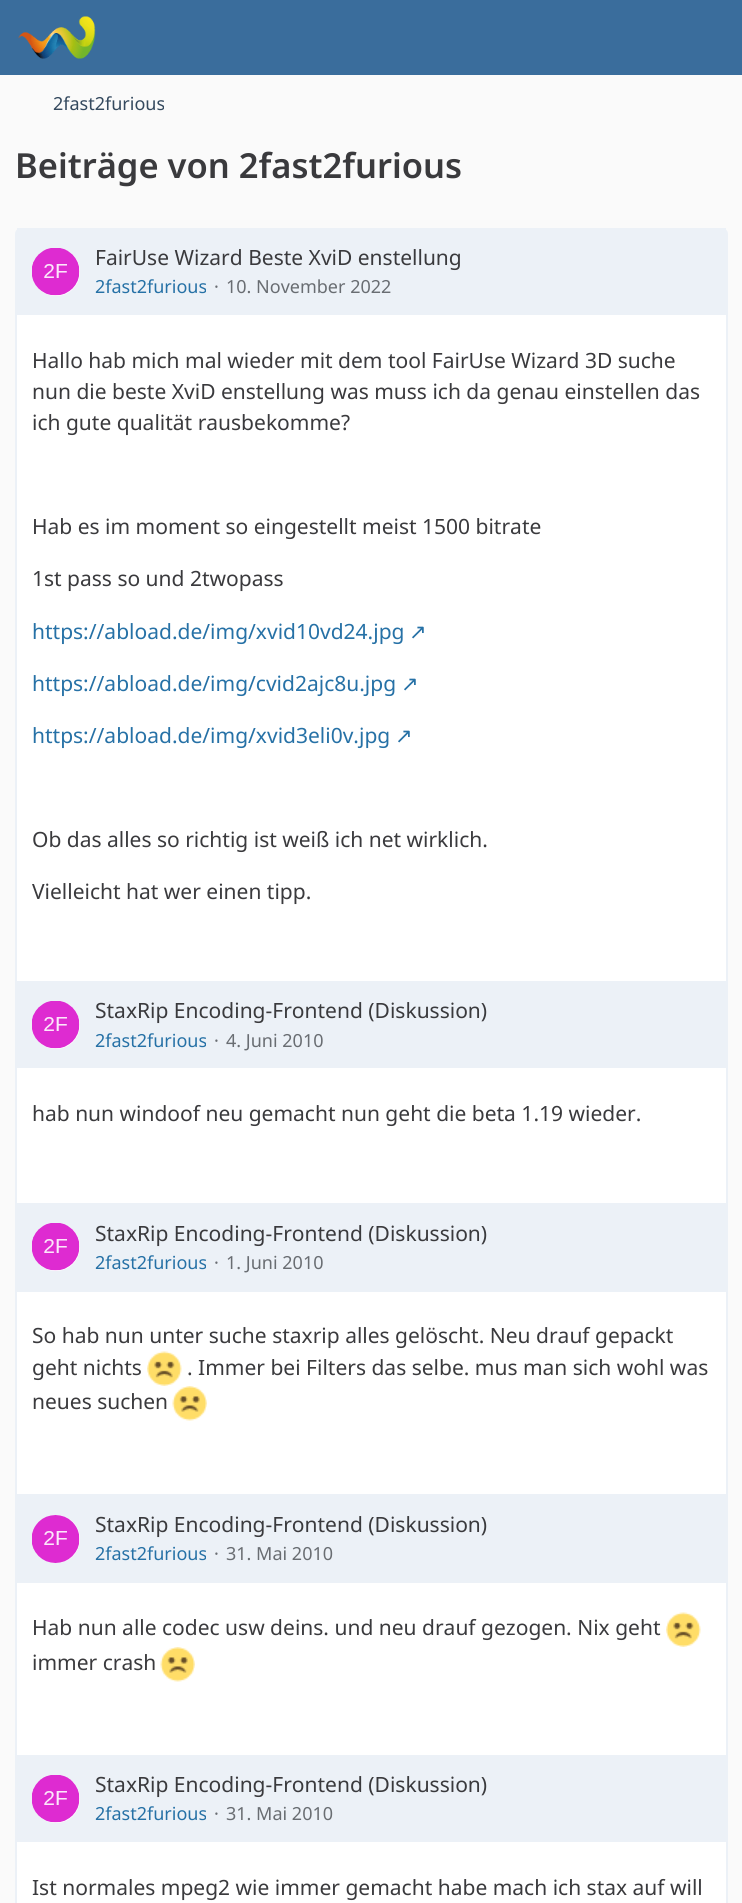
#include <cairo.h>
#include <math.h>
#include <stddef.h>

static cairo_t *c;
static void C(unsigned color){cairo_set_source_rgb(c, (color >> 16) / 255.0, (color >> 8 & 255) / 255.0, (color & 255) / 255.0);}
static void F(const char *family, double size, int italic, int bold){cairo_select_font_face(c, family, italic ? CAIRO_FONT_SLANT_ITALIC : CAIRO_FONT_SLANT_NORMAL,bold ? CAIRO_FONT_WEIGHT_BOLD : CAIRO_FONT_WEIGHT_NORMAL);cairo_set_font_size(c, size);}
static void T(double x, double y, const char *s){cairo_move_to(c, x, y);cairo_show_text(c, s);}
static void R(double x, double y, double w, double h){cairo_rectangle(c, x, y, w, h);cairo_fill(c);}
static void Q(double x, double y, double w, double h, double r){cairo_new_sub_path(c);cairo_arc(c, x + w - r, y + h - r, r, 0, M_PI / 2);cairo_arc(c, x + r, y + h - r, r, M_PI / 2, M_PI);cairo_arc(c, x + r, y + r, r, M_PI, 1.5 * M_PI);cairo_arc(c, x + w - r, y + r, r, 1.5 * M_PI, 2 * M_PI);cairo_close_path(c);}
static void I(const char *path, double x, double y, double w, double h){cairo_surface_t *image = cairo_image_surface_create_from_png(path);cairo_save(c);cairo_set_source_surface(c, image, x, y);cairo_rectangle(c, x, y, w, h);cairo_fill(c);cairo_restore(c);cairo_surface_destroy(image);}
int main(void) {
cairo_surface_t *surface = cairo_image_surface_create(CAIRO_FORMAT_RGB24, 742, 1903);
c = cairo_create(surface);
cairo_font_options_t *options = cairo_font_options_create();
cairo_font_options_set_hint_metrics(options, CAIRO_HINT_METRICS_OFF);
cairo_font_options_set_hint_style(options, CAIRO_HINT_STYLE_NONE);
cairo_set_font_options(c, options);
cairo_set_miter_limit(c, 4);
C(0xfafafa);
cairo_paint(c);
C(0x3a6d9c);
R(0,0,742,75);
I("1.png",18,16,78,43);
F("Noto Sans",18,0,0);
C(0x34495e);
T(53,110,"2fast2furious");
F("Noto Sans SemiBold",34.5,0,0);
C(0x3a3a3d);
T(15,178,"Beiträge von 2fast2furious");
C(0xffffff);
Q(16,229,711,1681,5);
cairo_fill_preserve(c);
C(0xecf1f7);
cairo_stroke(c);
R(17,228,709,87);
C(0xffffff);
cairo_arc(c,56,272,24,0,2 * M_PI);
cairo_fill(c);
I("2.png",32,248,48,48);
F("Noto Sans",21,0,0);
C(0x3a3a3d);
T(95,265,"FairUse Wizard Beste XviD enstellung");
F("Noto Sans",18,0,0);
C(0x2671a6);
T(95,293,"2fast2furious");
C(0x696d72);
T(214,293,"·");
T(226,293,"10. November 2022");
F("Noto Sans",21,0,0);
C(0x3a3a3d);
T(32,368,"Hallo hab mich mal wieder mit dem tool FairUse Wizard 3D suche");
T(32,399,"nun die beste XviD enstellung was muss ich da genau einstellen das");
T(32,430,"ich gute qualität rausbekomme?");
T(32,534,"Hab es im moment so eingestellt meist 1500 bitrate");
T(32,586,"1st pass so und 2twopass");
C(0x2671a6);
T(32,639,"https://abload.de/img/xvid10vd24.jpg");
F("DejaVu Sans",21,0,0);
T(409,639,"↗");
F("Noto Sans",21,0,0);
T(32,691,"https://abload.de/img/cvid2ajc8u.jpg");
F("DejaVu Sans",21,0,0);
T(401,691,"↗");
F("Noto Sans",21,0,0);
T(32,743,"https://abload.de/img/xvid3eli0v.jpg");
F("DejaVu Sans",21,0,0);
T(395,743,"↗");
F("Noto Sans",21,0,0);
C(0x3a3a3d);
T(32,847,"Ob das alles so richtig ist weiß ich net wirklich.");
T(32,899,"Vielleicht hat wer einen tipp.");
C(0xecf1f7);
R(17,981,709,87);
C(0xffffff);
cairo_new_path(c);
cairo_arc(c,56,1025,24,0,2 * M_PI);
cairo_fill(c);
I("3.png",32,1001,48,48);
C(0x3a3a3d);
T(95,1018,"StaxRip Encoding-Frontend (Diskussion)");
F("Noto Sans",18,0,0);
C(0x2671a6);
T(95,1047,"2fast2furious");
C(0x696d72);
T(214,1047,"·");
T(226,1047,"4. Juni 2010");
F("Noto Sans",21,0,0);
C(0x3a3a3d);
T(32,1121,"hab nun windoof neu gemacht nun geht die beta 1.19 wieder.");
C(0xecf1f7);
R(17,1203,709,89);
C(0xffffff);
cairo_new_path(c);
cairo_arc(c,56,1247,24,0,2 * M_PI);
cairo_fill(c);
I("4.png",32,1223,48,48);
C(0x3a3a3d);
T(95,1241,"StaxRip Encoding-Frontend (Diskussion)");
F("Noto Sans",18,0,0);
C(0x2671a6);
T(95,1269,"2fast2furious");
C(0x696d72);
T(214,1269,"·");
T(226,1269,"1. Juni 2010");
F("Noto Sans",21,0,0);
C(0x3a3a3d);
T(32,1343,"So hab nun unter suche staxrip alles gelöscht. Neu drauf gepackt");
T(32,1375,"geht nichts");
I("5.png",147,1351,35,35);
T(187,1375,". Immer bei Filters das selbe. mus man sich wohl was");
T(32,1409,"neues suchen");
I("6.png",172,1386,35,35);
C(0xecf1f7);
R(17,1494,709,89);
C(0xffffff);
cairo_arc(c,56,1539,24,0,2 * M_PI);
cairo_fill(c);
I("7.png",32,1515,48,48);
C(0x3a3a3d);
T(95,1532,"StaxRip Encoding-Frontend (Diskussion)");
F("Noto Sans",18,0,0);
C(0x2671a6);
T(95,1560,"2fast2furious");
C(0x696d72);
T(214,1560,"·");
T(226,1560,"31. Mai 2010");
F("Noto Sans",21,0,0);
C(0x3a3a3d);
T(32,1635,"Hab nun alle codec usw deins. und neu drauf gezogen. Nix geht");
I("5.png",666,1612,35,35);
T(32,1670,"immer crash");
I("6.png",160,1647,35,35);
C(0xecf1f7);
R(17,1755,709,87);
C(0xffffff);
cairo_arc(c,56,1799,24,0,2 * M_PI);
cairo_fill(c);
I("8.png",32,1775,48,48);
C(0x3a3a3d);
T(95,1792,"StaxRip Encoding-Frontend (Diskussion)");
F("Noto Sans",18,0,0);
C(0x2671a6);
T(95,1820,"2fast2furious");
C(0x696d72);
T(214,1820,"·");
T(226,1820,"31. Mai 2010");
F("Noto Sans",21,0,0);
C(0x3a3a3d);
T(32,1895,"Ist normales mpeg2 wie immer gemacht habe mach ich stax auf will");
cairo_surface_write_to_png(surface, "o.png");
cairo_font_options_destroy(options);
cairo_destroy(c);
cairo_surface_destroy(surface);
return 0;
}
